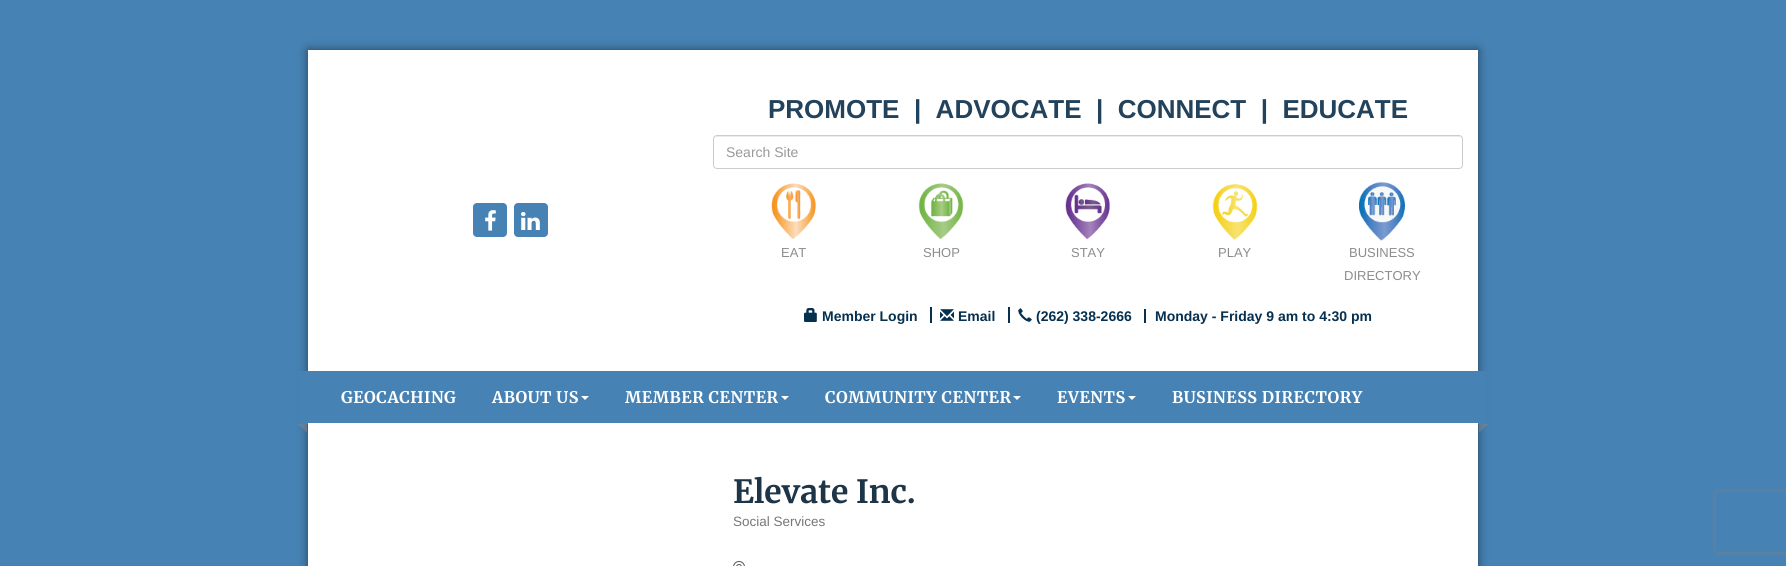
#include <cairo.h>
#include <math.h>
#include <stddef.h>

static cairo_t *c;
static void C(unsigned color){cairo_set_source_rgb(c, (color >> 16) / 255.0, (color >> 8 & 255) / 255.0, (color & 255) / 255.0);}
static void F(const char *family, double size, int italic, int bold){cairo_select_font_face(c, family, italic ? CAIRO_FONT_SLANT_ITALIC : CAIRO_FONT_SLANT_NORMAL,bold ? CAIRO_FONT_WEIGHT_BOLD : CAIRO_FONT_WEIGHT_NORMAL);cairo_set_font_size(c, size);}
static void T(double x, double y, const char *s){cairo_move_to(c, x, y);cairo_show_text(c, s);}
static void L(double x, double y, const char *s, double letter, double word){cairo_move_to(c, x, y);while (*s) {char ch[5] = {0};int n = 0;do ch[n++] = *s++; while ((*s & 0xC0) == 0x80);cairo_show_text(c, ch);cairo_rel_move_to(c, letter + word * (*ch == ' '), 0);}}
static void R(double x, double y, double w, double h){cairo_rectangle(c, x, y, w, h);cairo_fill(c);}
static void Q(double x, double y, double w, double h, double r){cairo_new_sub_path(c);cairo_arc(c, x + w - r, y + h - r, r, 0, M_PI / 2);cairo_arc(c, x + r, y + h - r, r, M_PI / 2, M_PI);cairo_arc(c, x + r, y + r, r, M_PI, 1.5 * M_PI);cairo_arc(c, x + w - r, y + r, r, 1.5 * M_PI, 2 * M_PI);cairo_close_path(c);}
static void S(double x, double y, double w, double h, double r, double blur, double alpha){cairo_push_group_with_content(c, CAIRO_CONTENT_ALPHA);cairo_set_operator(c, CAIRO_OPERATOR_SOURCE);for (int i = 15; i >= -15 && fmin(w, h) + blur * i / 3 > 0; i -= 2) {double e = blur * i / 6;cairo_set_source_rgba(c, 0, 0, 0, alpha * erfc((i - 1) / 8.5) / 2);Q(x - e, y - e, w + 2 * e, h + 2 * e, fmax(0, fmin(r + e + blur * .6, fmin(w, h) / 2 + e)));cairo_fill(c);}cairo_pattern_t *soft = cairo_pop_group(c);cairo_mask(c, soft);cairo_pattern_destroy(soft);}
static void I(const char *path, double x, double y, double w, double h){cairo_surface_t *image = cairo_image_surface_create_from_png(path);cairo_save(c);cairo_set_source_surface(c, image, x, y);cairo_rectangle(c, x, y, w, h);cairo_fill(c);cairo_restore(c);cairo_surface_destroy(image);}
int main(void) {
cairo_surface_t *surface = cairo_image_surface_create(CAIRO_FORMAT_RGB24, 1786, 566);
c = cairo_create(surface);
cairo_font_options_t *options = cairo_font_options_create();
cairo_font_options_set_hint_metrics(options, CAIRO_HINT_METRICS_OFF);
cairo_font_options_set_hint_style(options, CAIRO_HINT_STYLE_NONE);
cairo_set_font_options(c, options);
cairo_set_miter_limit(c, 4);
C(0x4682b4);
cairo_paint(c);
C(0x000000);
S(308,50,1170,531,0,5,.5);
C(0xffffff);
R(308,50,1170,516);
C(0x4682b4);
Q(473.5,203.5,33,33,3.5);
cairo_fill_preserve(c);
cairo_set_line_width(c,1);
cairo_stroke(c);
I("1.png",485,210,11,21);
Q(514.5,203.5,33,33,3.5);
cairo_fill_preserve(c);
cairo_stroke(c);
I("2.png",521,212,19,18);
F("Liberation Sans",26,0,1);
C(0x23425b);
T(768,118,"PROMOTE  |  ADVOCATE  |  CONNECT  |  EDUCATE");
C(0xececec);
cairo_new_path(c);
cairo_move_to(c,717,137);
cairo_line_to(c,1459,137);
cairo_curve_to(c,1461,137,1462,138,1462,140);
cairo_curve_to(c,1462,138,1461,136,1459,136);
cairo_line_to(c,717,136);
cairo_curve_to(c,715,136,714,138,714,140);
cairo_curve_to(c,714,138,715,137,717,137);
cairo_close_path(c);
cairo_fill(c);
Q(713.5,135.5,749,33,3.5);
C(0xcccccc);
cairo_stroke(c);
F("Liberation Sans",14,0,0);
C(0x999999);
T(726,157,"Search Site");
I("3.png",771,183,45,56);
F("Liberation Sans",13,0,0);
C(0x8b8c8d);
T(781,257,"EAT");
I("4.png",918,183,46,57);
T(923,257,"SHOP");
I("5.png",1065,183,45,57);
T(1071,257,"STAY");
I("6.png",1212,184,46,56);
T(1218,257,"PLAY");
I("7.png",1359,181,46,60);
T(1349,257,"BUSINESS");
T(1344,280,"DIRECTORY");
I("8.png",804,308,13,14);
F("Liberation Sans",14,0,1);
C(0x063050);
T(822,321,"Member Login");
R(930,307,2,16);
I("9.png",940,309,14,12);
T(958,321,"Email");
R(1008,307,2,16);
I("10.png",1018,308,14,14);
T(1036,321,"(262) 338-2666");
R(1144,309,2,14);
T(1155,321,"Monday - Friday 9 am to 4:30 pm");
C(0x4682b4);
R(308,371,1170,52);
R(299,371,9,53);
cairo_set_source_rgba(c,0.533,0.533,0.533,0.48);
cairo_new_path(c);
cairo_move_to(c,307,424);
cairo_line_to(c,307,433);
cairo_line_to(c,298,424);
cairo_close_path(c);
cairo_fill(c);
F("Merriweather",16,0,1);
C(0xffffff);
L(341,403,"GEOCACHING",.5,0);
L(492,403,"ABOUT US",.5,0);
cairo_new_path(c);
cairo_move_to(c,581,396);
cairo_line_to(c,589,396);
cairo_line_to(c,585,400);
cairo_close_path(c);
cairo_fill(c);
L(625,403,"MEMBER CENTER",.5,0);
cairo_new_path(c);
cairo_move_to(c,781,396);
cairo_line_to(c,789,396);
cairo_line_to(c,785,400);
cairo_close_path(c);
cairo_fill(c);
L(825,403,"COMMUNITY CENTER",.5,0);
cairo_new_path(c);
cairo_move_to(c,1013,396);
cairo_line_to(c,1021,396);
cairo_line_to(c,1017,400);
cairo_close_path(c);
cairo_fill(c);
L(1057,403,"EVENTS",.5,0);
cairo_new_path(c);
cairo_move_to(c,1128,396);
cairo_line_to(c,1136,396);
cairo_line_to(c,1132,400);
cairo_close_path(c);
cairo_fill(c);
L(1172,403,"BUSINESS DIRECTORY",.5,0);
C(0x4682b4);
R(1478,371,9,53);
cairo_set_source_rgba(c,0.533,0.533,0.533,0.48);
cairo_new_path(c);
cairo_move_to(c,1479,424);
cairo_line_to(c,1488,424);
cairo_line_to(c,1479,433);
cairo_close_path(c);
cairo_fill(c);
F("Merriweather",32,0,1);
C(0x1e3547);
T(733,503,"Elevate Inc.");
F("Liberation Sans",13.5,0,0);
C(0x777777);
T(733,526,"Social Services");
I("11.png",733,561,12,5);
cairo_save(c);
cairo_set_fill_rule(c,CAIRO_FILL_RULE_EVEN_ODD);
cairo_new_path(c);
cairo_move_to(c,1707,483);
cairo_line_to(c,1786,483);
cairo_line_to(c,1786,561);
cairo_line_to(c,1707,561);
cairo_close_path(c);
cairo_move_to(c,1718,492);
cairo_line_to(c,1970,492);
cairo_curve_to(c,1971,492,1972,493,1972,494);
cairo_line_to(c,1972,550);
cairo_curve_to(c,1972,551,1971,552,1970,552);
cairo_line_to(c,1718,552);
cairo_curve_to(c,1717,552,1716,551,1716,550);
cairo_line_to(c,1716,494);
cairo_curve_to(c,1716,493,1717,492,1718,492);
cairo_close_path(c);
cairo_clip(c);
C(0x808080);
S(1716,492,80,60,2,2.5,1);
cairo_restore(c);
cairo_surface_write_to_png(surface, "o.png");
cairo_font_options_destroy(options);
cairo_destroy(c);
cairo_surface_destroy(surface);
return 0;
}
